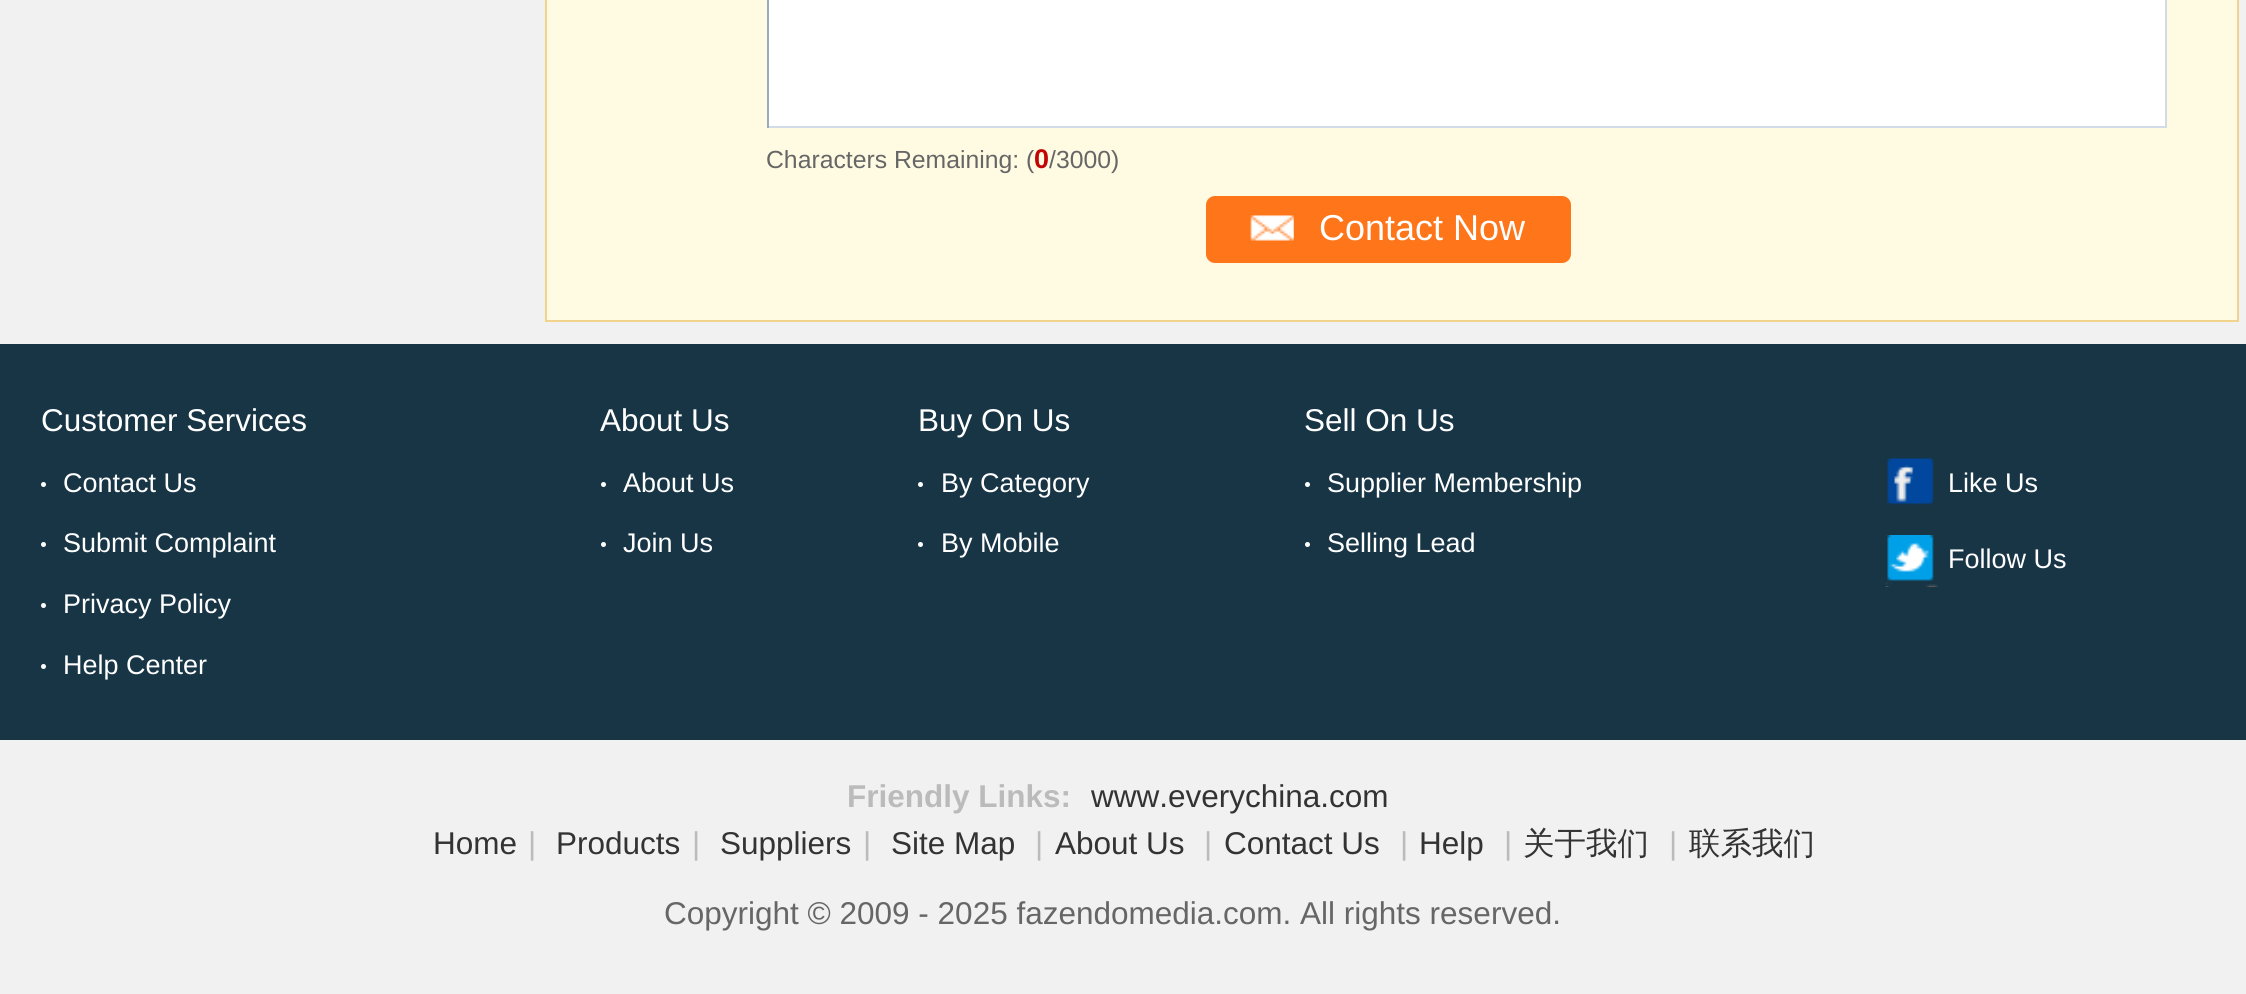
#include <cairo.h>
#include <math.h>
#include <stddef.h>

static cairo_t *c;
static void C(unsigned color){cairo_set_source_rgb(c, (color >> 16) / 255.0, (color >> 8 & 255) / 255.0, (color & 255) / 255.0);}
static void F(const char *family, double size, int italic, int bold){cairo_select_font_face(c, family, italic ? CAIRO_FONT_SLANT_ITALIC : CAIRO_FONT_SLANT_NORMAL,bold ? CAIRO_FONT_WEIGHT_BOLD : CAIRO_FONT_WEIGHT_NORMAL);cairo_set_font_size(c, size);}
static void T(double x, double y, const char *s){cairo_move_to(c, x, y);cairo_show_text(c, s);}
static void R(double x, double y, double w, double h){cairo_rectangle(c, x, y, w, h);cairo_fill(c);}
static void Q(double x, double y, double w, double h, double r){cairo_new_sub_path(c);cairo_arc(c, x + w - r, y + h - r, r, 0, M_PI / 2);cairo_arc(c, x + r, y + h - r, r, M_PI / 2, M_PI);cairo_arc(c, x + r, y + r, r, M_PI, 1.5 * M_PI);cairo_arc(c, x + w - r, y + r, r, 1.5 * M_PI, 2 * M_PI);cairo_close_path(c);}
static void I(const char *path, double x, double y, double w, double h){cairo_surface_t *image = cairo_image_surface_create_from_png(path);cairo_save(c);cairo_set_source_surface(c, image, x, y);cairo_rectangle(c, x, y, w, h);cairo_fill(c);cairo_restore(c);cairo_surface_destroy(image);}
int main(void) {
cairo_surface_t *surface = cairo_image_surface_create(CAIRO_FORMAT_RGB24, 2246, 994);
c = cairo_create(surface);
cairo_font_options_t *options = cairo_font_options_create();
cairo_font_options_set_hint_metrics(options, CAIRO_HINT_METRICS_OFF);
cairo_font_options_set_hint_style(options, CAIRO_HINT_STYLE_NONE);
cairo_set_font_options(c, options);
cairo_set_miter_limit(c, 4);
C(0xf1f1f1);
cairo_paint(c);
C(0xfffae2);
cairo_rectangle(c,546,-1,1692,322);
cairo_fill_preserve(c);
C(0xf1d38b);
cairo_stroke(c);
C(0xffffff);
R(769,0,1396,126);
C(0xd2dce8);
R(2165,0,2,128);
R(767,126,1400,2);
C(0x99aabd);
R(767,0,2,128);
F("Liberation Sans",24.75,0,0);
C(0x666666);
T(766,168,"Characters Remaining: (");
F("Liberation Sans",27,0,1);
C(0xc10404);
T(1034,168,"0");
F("Liberation Sans",24.75,0,0);
C(0x666666);
T(1049,168,"/3000)");
C(0xff7519);
Q(1206,196,365,67,9);
cairo_fill(c);
I("1.png",1250,215,44,26);
F("Liberation Sans",36,0,0);
C(0xffffff);
T(1319,240,"Contact Now");
C(0x183546);
R(0,344,2246,396);
F("Liberation Sans",31.5,0,0);
C(0xffffff);
T(41,431,"Customer Services");
cairo_new_path(c);
cairo_arc(c,43.5,484.5,2.5,0,2 * M_PI);
cairo_fill(c);
F("Liberation Sans",27,0,0);
T(63,492,"Contact Us");
cairo_new_path(c);
cairo_arc(c,43.5,544.5,2.5,0,2 * M_PI);
cairo_fill(c);
T(63,552,"Submit Complaint");
cairo_new_path(c);
cairo_arc(c,43.5,605.5,2.5,0,2 * M_PI);
cairo_fill(c);
T(63,613,"Privacy Policy");
cairo_new_path(c);
cairo_arc(c,43.5,666.5,2.5,0,2 * M_PI);
cairo_fill(c);
T(63,674,"Help Center");
F("Liberation Sans",31.5,0,0);
T(600,431,"About Us");
cairo_new_path(c);
cairo_arc(c,603.5,484.5,2.5,0,2 * M_PI);
cairo_fill(c);
F("Liberation Sans",27,0,0);
T(623,492,"About Us");
cairo_new_path(c);
cairo_arc(c,603.5,544.5,2.5,0,2 * M_PI);
cairo_fill(c);
T(623,552,"Join Us");
F("Liberation Sans",31.5,0,0);
T(918,431,"Buy On Us");
cairo_new_path(c);
cairo_arc(c,920.5,484.5,2.5,0,2 * M_PI);
cairo_fill(c);
F("Liberation Sans",27,0,0);
T(941,492,"By Category");
cairo_new_path(c);
cairo_arc(c,920.5,544.5,2.5,0,2 * M_PI);
cairo_fill(c);
T(941,552,"By Mobile");
F("Liberation Sans",31.5,0,0);
T(1304,431,"Sell On Us");
cairo_new_path(c);
cairo_arc(c,1307.5,484.5,2.5,0,2 * M_PI);
cairo_fill(c);
F("Liberation Sans",27,0,0);
T(1327,492,"Supplier Membership");
cairo_new_path(c);
cairo_arc(c,1307.5,544.5,2.5,0,2 * M_PI);
cairo_fill(c);
T(1327,552,"Selling Lead");
I("2.png",1887,458,47,47);
T(1948,492,"Like Us");
I("3.png",1885,535,54,52);
T(1948,568,"Follow Us");
F("Liberation Sans",31.5,0,1);
C(0xbbbbbb);
T(847,807,"Friendly Links:");
F("Liberation Sans",31.5,0,0);
C(0x333333);
T(1091,807,"www.everychina.com");
T(433,854,"Home");
C(0xbbbbbb);
T(528,854,"|");
C(0x333333);
T(556,854,"Products");
C(0xbbbbbb);
T(692,854,"|");
C(0x333333);
T(720,854,"Suppliers");
C(0xbbbbbb);
T(863,854,"|");
C(0x333333);
T(891,854,"Site Map");
C(0xbbbbbb);
T(1035,854,"|");
C(0x333333);
T(1055,854,"About Us");
C(0xbbbbbb);
T(1204,854,"|");
C(0x333333);
T(1224,854,"Contact Us");
C(0xbbbbbb);
T(1400,854,"|");
C(0x333333);
T(1419,854,"Help");
C(0xbbbbbb);
T(1504,854,"|");
F("WenQuanYi Zen Hei Medium",31.5,0,0);
C(0x333333);
T(1523,854,"关于我们");
F("Liberation Sans",31.5,0,0);
C(0xbbbbbb);
T(1669,854,"|");
F("WenQuanYi Zen Hei Medium",31.5,0,0);
C(0x333333);
T(1689,854,"联系我们");
F("Liberation Sans",31.5,0,0);
C(0x666666);
T(664,924,"Copyright © 2009 - 2025 fazendomedia.com. All rights reserved.");
cairo_surface_write_to_png(surface, "o.png");
cairo_font_options_destroy(options);
cairo_destroy(c);
cairo_surface_destroy(surface);
return 0;
}
